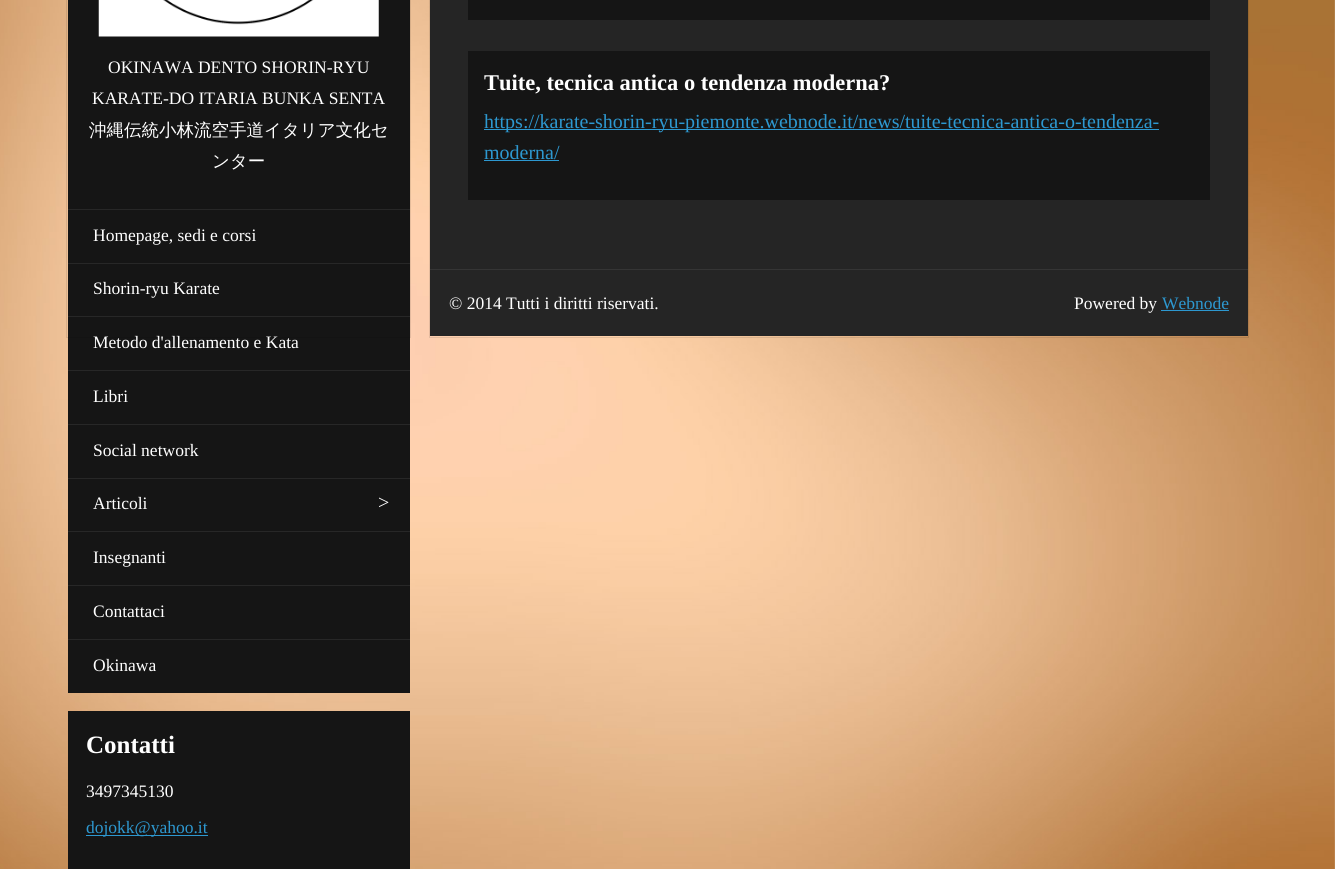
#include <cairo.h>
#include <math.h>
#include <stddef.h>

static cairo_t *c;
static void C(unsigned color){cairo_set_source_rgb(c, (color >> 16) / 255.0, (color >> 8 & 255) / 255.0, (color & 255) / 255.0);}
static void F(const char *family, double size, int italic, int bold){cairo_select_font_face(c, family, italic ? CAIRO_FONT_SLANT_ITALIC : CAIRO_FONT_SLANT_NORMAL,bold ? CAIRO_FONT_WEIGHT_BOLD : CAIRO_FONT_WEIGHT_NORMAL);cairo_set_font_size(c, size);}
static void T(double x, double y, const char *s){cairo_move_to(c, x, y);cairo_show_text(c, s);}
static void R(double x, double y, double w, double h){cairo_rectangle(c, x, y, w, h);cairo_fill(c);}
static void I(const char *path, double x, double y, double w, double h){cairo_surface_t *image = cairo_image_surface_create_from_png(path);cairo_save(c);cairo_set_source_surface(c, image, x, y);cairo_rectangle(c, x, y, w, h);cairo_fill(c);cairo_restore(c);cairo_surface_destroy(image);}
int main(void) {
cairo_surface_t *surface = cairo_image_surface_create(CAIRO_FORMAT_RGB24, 1335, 869);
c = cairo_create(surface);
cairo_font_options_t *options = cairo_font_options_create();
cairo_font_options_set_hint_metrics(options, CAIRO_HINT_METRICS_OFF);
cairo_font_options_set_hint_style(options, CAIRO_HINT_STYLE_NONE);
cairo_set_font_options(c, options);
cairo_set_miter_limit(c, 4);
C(0xffffff);
cairo_paint(c);
I("1.png",0,0,1335,869);
C(0x151515);
R(68,0,342,209);
R(68,210,342,483);
cairo_rectangle(c,66.5,-.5,344,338);
cairo_set_source_rgba(c,0,0,0,0.1);
cairo_set_line_width(c,1);
cairo_stroke(c);
I("2.png",98,0,281,37);
F("Liberation Serif",17.5,0,0);
C(0xffffff);
T(108,73,"OKINAWA DENTO SHORIN-RYU");
T(92,104,"KARATE-DO ITARIA BUNKA SENTA");
F("WenQuanYi Zen Hei Medium",17.5,0,0);
T(89,136,"沖縄伝統小林流空手道イタリア文化セ");
T(212,167,"ンター");
C(0x272727);
R(68,209,342,1);
F("Liberation Serif",17.5,0,0);
C(0xffffff);
T(93,241,"Homepage, sedi e corsi");
C(0x272727);
R(68,263,342,1);
C(0xffffff);
T(93,294,"Shorin-ryu Karate");
C(0x272727);
R(68,316,342,1);
C(0xffffff);
T(93,348,"Metodo d'allenamento e Kata");
C(0x272727);
R(68,370,342,1);
C(0xffffff);
T(93,402,"Libri");
C(0x272727);
R(68,424,342,1);
C(0xffffff);
T(93,456,"Social network");
C(0x272727);
R(68,478,342,1);
C(0xffffff);
T(93,509,"Articoli");
F("Liberation Serif",20,0,0);
T(378,509,">");
C(0x272727);
R(68,531,342,1);
F("Liberation Serif",17.5,0,0);
C(0xffffff);
T(93,563,"Insegnanti");
C(0x272727);
R(68,585,342,1);
C(0xffffff);
T(93,617,"Contattaci");
C(0x272727);
R(68,639,342,1);
C(0xffffff);
T(93,671,"Okinawa");
C(0x151515);
R(68,711,342,158);
F("Liberation Serif",25,0,1);
C(0xffffff);
T(86,753,"Contatti");
F("Liberation Serif",17.5,0,0);
T(86,797,"3497345130");
C(0x2d98d0);
R(86,835,122,1);
T(86,833,"dojokk@yahoo.it");
C(0x252525);
R(430,0,818,231);
cairo_rectangle(c,429.5,-.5,819,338);
cairo_set_source_rgba(c,0,0,0,0.1);
cairo_stroke(c);
C(0x151515);
R(468,0,742,20);
R(468,51,742,149);
F("Liberation Serif",22.5,0,1);
C(0xffffff);
T(484,90,"Tuite, tecnica antica o tendenza moderna?");
C(0x2d98d0);
R(484,129,675,1);
F("Liberation Serif",20,0,0);
T(484,128,"https://karate-shorin-ryu-piemonte.webnode.it/news/tuite-tecnica-antica-o-tendenza-");
T(484,159,"moderna/");
R(484,160,75,1);
C(0x252525);
R(430,231,818,38);
R(430,270,818,66);
C(0x353535);
R(430,269,818,1);
F("Liberation Serif",17.5,0,0);
C(0xffffff);
T(449,309,"© 2014 Tutti i diritti riservati.");
T(1074,309,"Powered by");
C(0x2d98d0);
R(1161,310,68,1);
T(1162,309,"Webnode");
cairo_surface_write_to_png(surface, "o.png");
cairo_font_options_destroy(options);
cairo_destroy(c);
cairo_surface_destroy(surface);
return 0;
}
